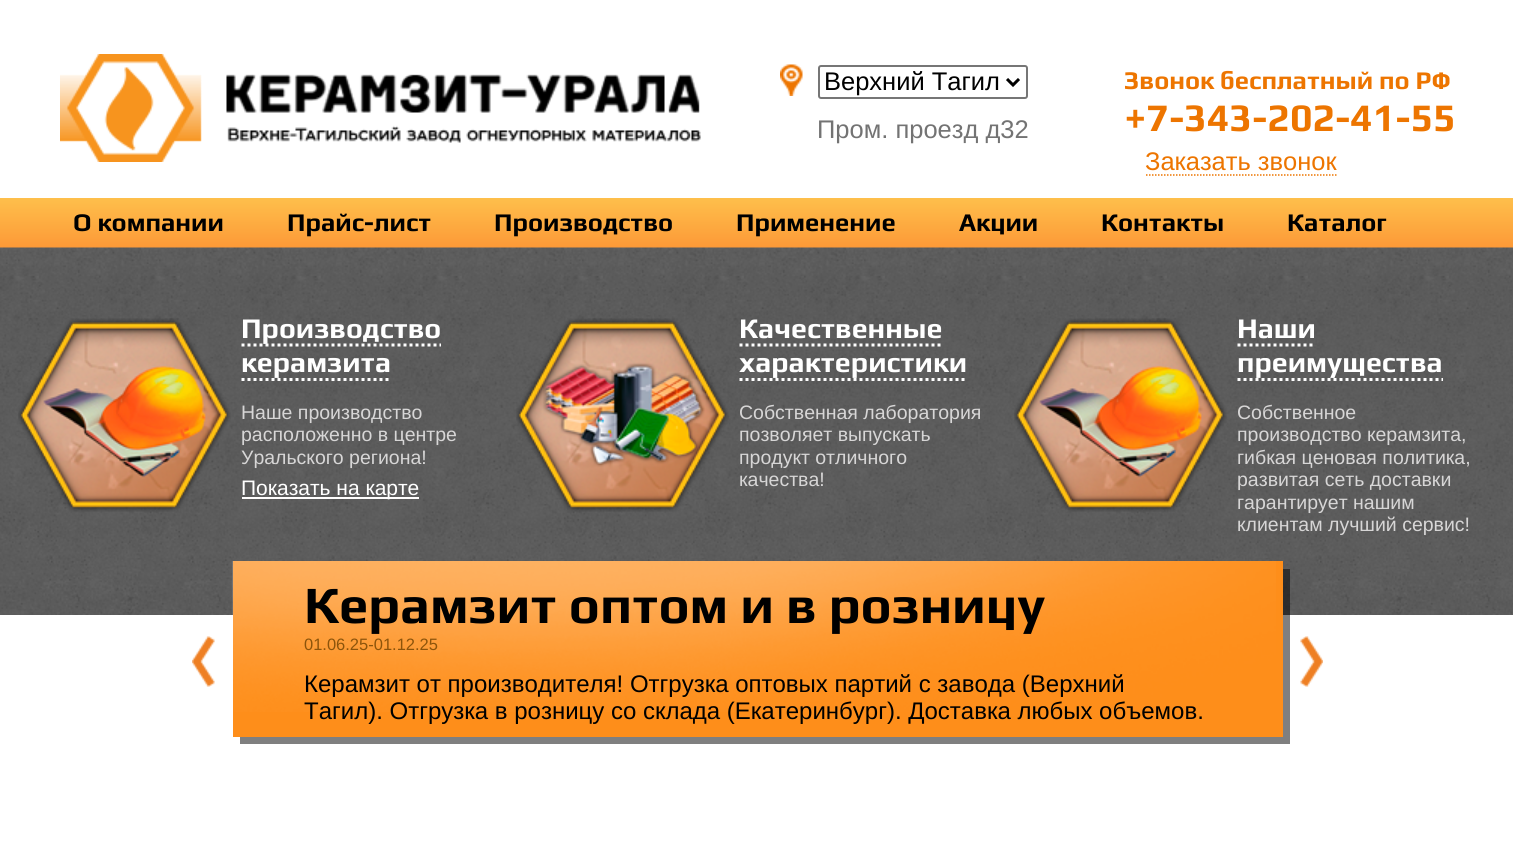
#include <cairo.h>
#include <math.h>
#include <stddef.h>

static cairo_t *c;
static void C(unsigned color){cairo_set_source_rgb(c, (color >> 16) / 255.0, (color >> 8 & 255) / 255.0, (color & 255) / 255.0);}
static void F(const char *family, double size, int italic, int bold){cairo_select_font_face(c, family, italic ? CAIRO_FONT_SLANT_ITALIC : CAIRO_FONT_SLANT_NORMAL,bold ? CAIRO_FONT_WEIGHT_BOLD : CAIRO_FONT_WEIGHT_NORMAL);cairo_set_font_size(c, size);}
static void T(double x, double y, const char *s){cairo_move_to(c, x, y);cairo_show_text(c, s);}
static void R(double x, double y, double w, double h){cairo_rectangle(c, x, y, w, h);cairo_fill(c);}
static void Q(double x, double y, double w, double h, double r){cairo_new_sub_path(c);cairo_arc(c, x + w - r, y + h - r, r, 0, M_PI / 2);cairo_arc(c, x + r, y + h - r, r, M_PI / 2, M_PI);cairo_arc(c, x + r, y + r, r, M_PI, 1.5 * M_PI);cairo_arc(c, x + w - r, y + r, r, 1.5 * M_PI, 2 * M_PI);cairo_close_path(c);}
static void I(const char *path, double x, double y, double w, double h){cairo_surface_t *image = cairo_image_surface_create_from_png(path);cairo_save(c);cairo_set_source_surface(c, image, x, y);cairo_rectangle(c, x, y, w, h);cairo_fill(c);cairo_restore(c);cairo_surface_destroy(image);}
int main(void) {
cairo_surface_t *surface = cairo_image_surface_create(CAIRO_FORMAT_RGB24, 1513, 862);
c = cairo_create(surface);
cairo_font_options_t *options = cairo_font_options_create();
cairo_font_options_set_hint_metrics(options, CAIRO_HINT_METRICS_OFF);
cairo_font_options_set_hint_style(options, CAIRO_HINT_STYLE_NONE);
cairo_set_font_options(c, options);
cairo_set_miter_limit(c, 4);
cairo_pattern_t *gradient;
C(0xffffff);
cairo_paint(c);
I("1.png",60,54,641,108);
I("2.png",780,64,23,32);
Q(819,66,208,32,2);
C(0x767676);
cairo_stroke(c);
cairo_new_path(c);
cairo_move_to(c,1007,79);
cairo_line_to(c,1013,85);
cairo_line_to(c,1019,79);
C(0x000000);
cairo_set_line_width(c,3);
cairo_stroke(c);
F("Liberation Sans",25.5,0,0);
T(824,90,"Верхний Тагил");
C(0x737373);
T(817,138,"Пром. проезд д32");
F("Play",25.5,0,1);
C(0xed7500);
T(1124,89,"Звонок бесплатный по РФ");
F("Play",39,0,1);
T(1124,131,"+7-343-202-41-55");
cairo_new_path(c);
cairo_move_to(c,1146,175);
cairo_line_to(c,1336.5,175);
cairo_set_line_width(c,1.5);
cairo_set_dash(c,(double[]){1.5,1.5},2,0);
cairo_stroke(c);
F("Liberation Sans",25.5,0,0);
T(1145,170,"Заказать звонок");
gradient = cairo_pattern_create_linear(757,248,757,198);
cairo_pattern_add_color_stop_rgba(gradient,0,0.992,0.6,0.216,1);
cairo_pattern_add_color_stop_rgba(gradient,1,0.996,0.749,0.294,1);
cairo_set_source(c,gradient);
cairo_pattern_destroy(gradient);
R(0,198,1513,50);
F("Play",25.5,0,1);
C(0x000000);
T(73,231,"О компании");
T(287,231,"Прайс-лист");
T(494,231,"Производство");
T(736,231,"Применение");
T(959,231,"Акции");
T(1101,231,"Контакты");
T(1287,231,"Каталог");
I("3.png",0,247,1513,368);
I("4.png",18,318,213,194);
cairo_new_path(c);
cairo_move_to(c,241.5,345);
cairo_line_to(c,441,345);
C(0xffffff);
cairo_set_line_width(c,3);
cairo_set_dash(c,(double[]){3,3},2,0);
cairo_stroke(c);
F("Play",28.5,0,1);
T(241,338,"Производство");
T(241,372,"керамзита");
cairo_new_path(c);
cairo_move_to(c,241.5,379.5);
cairo_line_to(c,391.5,379.5);
cairo_stroke(c);
F("Liberation Sans",19.5,0,0);
C(0xd7d6d6);
T(241,419,"Наше производство");
T(241,441,"расположенно в центре");
T(241,464,"Уральского региона!");
C(0xfffefe);
R(242,497,177,2);
F("Liberation Sans",21,0,0);
C(0xffffff);
T(241,495,"Показать на карте");
I("5.png",516,318,213,194);
F("Play",28.5,0,1);
T(739,338,"Качественные");
cairo_new_path(c);
cairo_move_to(c,739.5,345);
cairo_line_to(c,942,345);
cairo_stroke(c);
T(739,372,"характеристики");
cairo_new_path(c);
cairo_move_to(c,739.5,379.5);
cairo_line_to(c,967.5,379.5);
cairo_stroke(c);
F("Liberation Sans",19.5,0,0);
C(0xd7d6d6);
T(739,419,"Собственная лаборатория");
T(739,441,"позволяет выпускать");
T(739,464,"продукт отличного");
T(739,486,"качества!");
I("6.png",1014,318,213,194);
F("Play",28.5,0,1);
C(0xffffff);
T(1237,338,"Наши");
cairo_new_path(c);
cairo_move_to(c,1237.5,345);
cairo_line_to(c,1315.5,345);
cairo_stroke(c);
T(1237,372,"преимущества");
cairo_new_path(c);
cairo_move_to(c,1237.5,379.5);
cairo_line_to(c,1443,379.5);
cairo_stroke(c);
F("Liberation Sans",19.5,0,0);
C(0xd7d6d6);
T(1237,419,"Собственное");
T(1237,441,"производство керамзита,");
T(1237,464,"гибкая ценовая политика,");
T(1237,486,"развитая сеть доставки");
T(1237,509,"гарантирует нашим");
T(1237,531,"клиентам лучший сервис!");
cairo_set_source_rgba(c,0.004,0.004,0.004,0.5);
cairo_new_path(c);
cairo_move_to(c,240,736);
cairo_line_to(c,240,744);
cairo_line_to(c,1290,744);
cairo_line_to(c,1290,569);
cairo_line_to(c,1282,569);
cairo_line_to(c,1282,736);
cairo_close_path(c);
cairo_fill(c);
C(0xfe8e1a);
R(233,561,1050,176);
I("7.png",232,561,1044,151);
I("8.png",192,636,23,51);
F("Play",52.5,0,1);
C(0x000000);
T(304,623,"Керамзит оптом и в розницу");
F("Liberation Sans",16.5,0,0);
C(0x8c540b);
T(304,650,"01.06.25-01.12.25");
F("Liberation Sans",24,0,0);
C(0x000000);
T(304,692,"Керамзит от производителя! Отгрузка оптовых партий с завода (Верхний");
T(304,719,"Тагил). Отгрузка в розницу со склада (Екатеринбург). Доставка любых объемов.");
I("9.png",1300,636,23,51);
cairo_surface_write_to_png(surface, "o.png");
cairo_font_options_destroy(options);
cairo_destroy(c);
cairo_surface_destroy(surface);
return 0;
}
